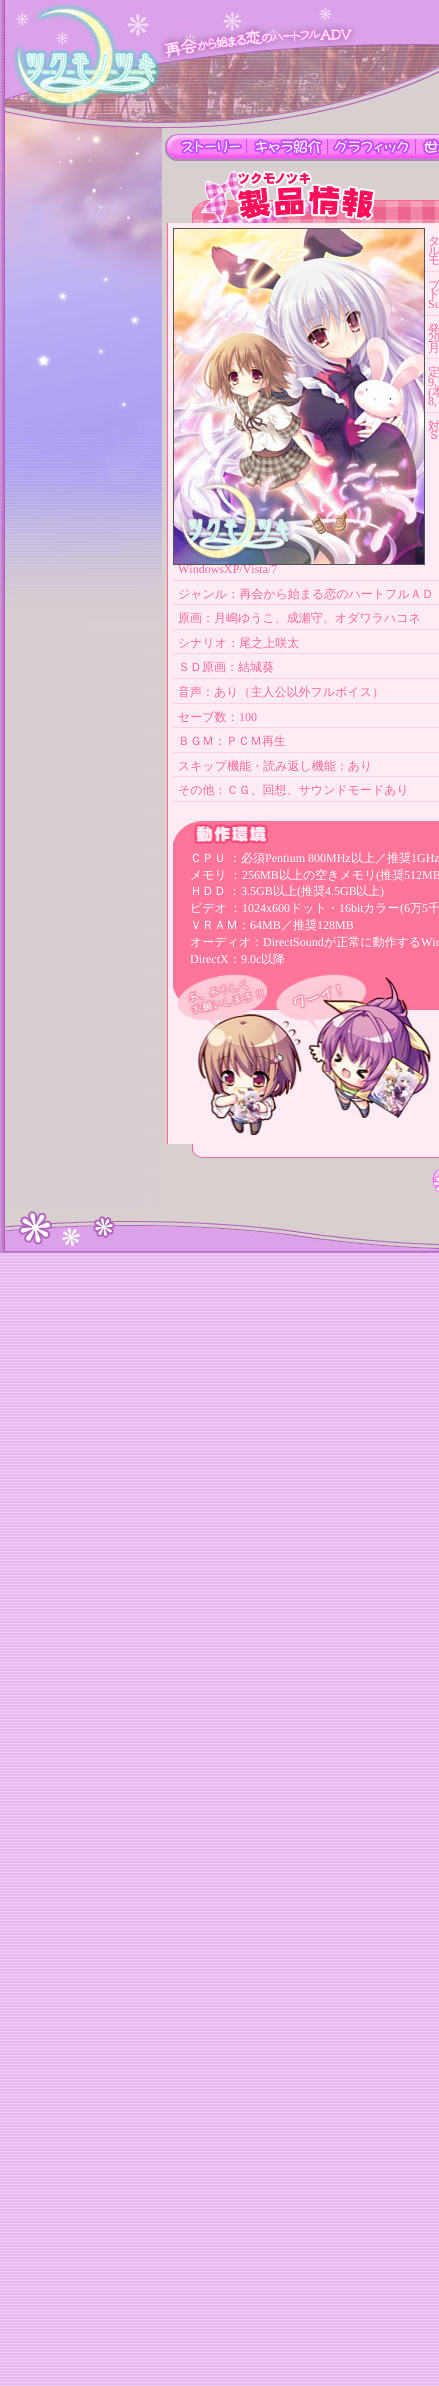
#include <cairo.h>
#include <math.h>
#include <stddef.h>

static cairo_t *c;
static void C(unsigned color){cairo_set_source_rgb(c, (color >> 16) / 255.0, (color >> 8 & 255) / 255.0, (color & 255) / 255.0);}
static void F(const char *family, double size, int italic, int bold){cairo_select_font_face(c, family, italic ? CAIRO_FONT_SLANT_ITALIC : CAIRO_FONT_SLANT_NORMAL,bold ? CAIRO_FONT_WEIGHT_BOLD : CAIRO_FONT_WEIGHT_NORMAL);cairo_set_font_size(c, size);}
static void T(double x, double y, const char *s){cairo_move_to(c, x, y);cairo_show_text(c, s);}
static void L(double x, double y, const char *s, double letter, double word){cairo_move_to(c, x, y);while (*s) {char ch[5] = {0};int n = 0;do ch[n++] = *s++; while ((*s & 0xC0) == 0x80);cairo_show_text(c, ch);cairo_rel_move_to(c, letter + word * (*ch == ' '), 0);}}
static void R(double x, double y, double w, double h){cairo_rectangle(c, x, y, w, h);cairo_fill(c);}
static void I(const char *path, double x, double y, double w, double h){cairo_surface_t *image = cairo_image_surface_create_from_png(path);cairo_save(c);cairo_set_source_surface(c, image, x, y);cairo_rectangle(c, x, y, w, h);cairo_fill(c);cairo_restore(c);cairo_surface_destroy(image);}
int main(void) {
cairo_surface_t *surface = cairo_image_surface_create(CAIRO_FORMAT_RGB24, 439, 2386);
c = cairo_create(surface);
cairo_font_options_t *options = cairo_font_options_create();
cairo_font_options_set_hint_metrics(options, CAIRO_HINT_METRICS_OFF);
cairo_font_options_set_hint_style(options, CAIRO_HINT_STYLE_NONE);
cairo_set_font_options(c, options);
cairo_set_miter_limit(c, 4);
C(0xffffff);
cairo_paint(c);
I("1.png",0,1253,439,1133);
I("2.png",0,0,439,23);
I("3.png",0,23,439,111);
I("4.png",0,628,162,571);
I("5.png",0,134,162,131);
I("6.png",0,265,162,154);
I("7.png",0,419,162,209);
C(0xd8cfcf);
R(162,134,277,1065);
I("8.png",165,134,83,27);
I("9.png",248,134,82,27);
I("10.png",330,134,88,27);
I("11.png",418,134,21,27);
I("12.png",192,170,247,53);
C(0xfeecf5);
R(168,223,271,921);
C(0xff6699);
R(167,223,1,921);
cairo_rectangle(c,173.5,228.5,251,336);
C(0x555555);
cairo_set_line_width(c,1);
cairo_stroke(c);
I("13.png",174,229,250,335);
C(0xffcfdf);
R(425,271,14,1);
F("WenQuanYi Zen Hei Medium",12,0,0);
C(0xff6699);
T(428,245,"タ");
T(428,255,"ル");
T(428,264,"モ");
C(0xffcfdf);
R(425,315,14,1);
C(0xff6699);
T(428,289,"ブ");
T(428,298,"ド");
F("Liberation Serif",12,0,0);
T(428,308,"Su");
C(0xffcfdf);
R(425,358,14,1);
F("WenQuanYi Zen Hei Medium",12,0,0);
C(0xff6699);
T(428,333,"発");
F("Liberation Serif",12,0,0);
T(428,342,"20");
F("WenQuanYi Zen Hei Medium",12,0,0);
T(428,352,"月");
C(0xffcfdf);
R(425,412,14,1);
C(0xff6699);
T(428,376,"定");
F("Liberation Serif",12,0,0);
T(428,386,"9,");
T(428,396,"(");
F("WenQuanYi Zen Hei Medium",12,0,0);
T(432,396,"本");
F("Liberation Serif",12,0,0);
T(428,405,"8,");
C(0xffcfdf);
R(173,580,266,1);
F("WenQuanYi Zen Hei Medium",12,0,0);
C(0xff6699);
T(428,430,"対");
T(428,439,"Ｓ");
F("Liberation Serif",12,0,0);
T(178,573,"WindowsXP/Vista/7");
C(0xffcfdf);
R(173,604,266,1);
F("WenQuanYi Zen Hei Medium",12,0,0);
C(0xff6699);
T(178,598,"ジャンル：再会から始まる恋のハートフルＡＤ");
C(0xffcfdf);
R(173,629,266,1);
C(0xff6699);
T(178,622,"原画：月嶋ゆうこ、成瀬守、オダワラハコネ");
C(0xffcfdf);
R(173,653,266,1);
C(0xff6699);
T(178,647,"シナリオ：尾之上咲太");
C(0xffcfdf);
R(173,678,266,1);
C(0xff6699);
T(178,671,"ＳＤ原画：結城葵");
C(0xffcfdf);
R(173,703,266,1);
C(0xff6699);
T(178,696,"音声：あり（主人公以外フルボイス）");
C(0xffcfdf);
R(173,727,266,1);
C(0xff6699);
T(178,721,"セーブ数：");
F("Liberation Serif",12,0,0);
T(239,721,"100");
C(0xffcfdf);
R(173,752,266,1);
F("WenQuanYi Zen Hei Medium",12,0,0);
C(0xff6699);
T(178,745,"ＢＧＭ：ＰＣＭ再生");
C(0xffcfdf);
R(173,776,266,1);
C(0xff6699);
T(178,770,"スキップ機能・読み返し機能：あり");
C(0xffcfdf);
R(173,801,266,1);
C(0xff6699);
T(178,794,"その他：ＣＧ、回想、サウンドモードあり");
I("14.png",173,819,266,26);
C(0xff759a);
R(173,845,266,127);
C(0xffffff);
T(190,862,"ＣＰＵ");
T(229,862,"：必須");
F("Liberation Serif",12,0,0);
T(265,862,"Pentium 800MHz");
F("WenQuanYi Zen Hei Medium",12,0,0);
T(351,862,"以上／推奨");
F("Liberation Serif",12,0,0);
T(411,862,"1GHz");
F("WenQuanYi Zen Hei Medium",12,0,0);
L(190,879,"メモリ ：",0,-1);
F("Liberation Serif",12,0,0);
T(242,879,"256MB");
F("WenQuanYi Zen Hei Medium",12,0,0);
T(279,879,"以上の空きメモリ");
F("Liberation Serif",12,0,0);
T(376,879,"(");
F("WenQuanYi Zen Hei Medium",12,0,0);
T(380,879,"推奨");
F("Liberation Serif",12,0,0);
T(404,879,"512MB");
F("WenQuanYi Zen Hei Medium",12,0,0);
L(190,895,"ＨＤＤ ：",0,-1);
F("Liberation Serif",12,0,0);
T(241,895,"3.5GB");
F("WenQuanYi Zen Hei Medium",12,0,0);
T(273,895,"以上");
F("Liberation Serif",12,0,0);
T(297,895,"(");
F("WenQuanYi Zen Hei Medium",12,0,0);
T(301,895,"推奨");
F("Liberation Serif",12,0,0);
T(325,895,"4.5GB");
F("WenQuanYi Zen Hei Medium",12,0,0);
T(356,895,"以上");
F("Liberation Serif",12,0,0);
T(380,895,")");
F("WenQuanYi Zen Hei Medium",12,0,0);
L(190,912,"ビデオ ：",0,-1);
F("Liberation Serif",12,0,0);
T(242,912,"1024x600");
F("WenQuanYi Zen Hei Medium",12,0,0);
T(290,912,"ドット・");
F("Liberation Serif",12,0,0);
T(339,912,"16bit");
F("WenQuanYi Zen Hei Medium",12,0,0);
T(363,912,"カラー");
F("Liberation Serif",12,0,0);
T(400,912,"(6");
F("WenQuanYi Zen Hei Medium",12,0,0);
T(410,912,"万");
F("Liberation Serif",12,0,0);
T(422,912,"5");
F("WenQuanYi Zen Hei Medium",12,0,0);
T(428,912,"千");
T(190,929,"ＶＲＡＭ：");
F("Liberation Serif",12,0,0);
T(250,929,"64MB");
F("WenQuanYi Zen Hei Medium",12,0,0);
T(281,929,"／推奨");
F("Liberation Serif",12,0,0);
T(317,929,"128MB");
F("WenQuanYi Zen Hei Medium",12,0,0);
T(190,946,"オーディオ：");
F("Liberation Serif",12,0,0);
T(263,946,"DirectSound");
F("WenQuanYi Zen Hei Medium",12,0,0);
T(324,946,"が正常に動作する");
F("Liberation Serif",12,0,0);
T(421,946,"Win");
T(190,963,"DirectX");
F("WenQuanYi Zen Hei Medium",12,0,0);
T(229,963,"：");
F("Liberation Serif",12,0,0);
T(241,963,"9.0c");
F("WenQuanYi Zen Hei Medium",12,0,0);
T(261,963,"以降");
I("15.png",173,972,266,167);
I("16.png",192,1144,247,14);
I("17.png",432,1169,7,23);
I("18.png",0,1199,439,54);
cairo_surface_write_to_png(surface, "o.png");
cairo_font_options_destroy(options);
cairo_destroy(c);
cairo_surface_destroy(surface);
return 0;
}
